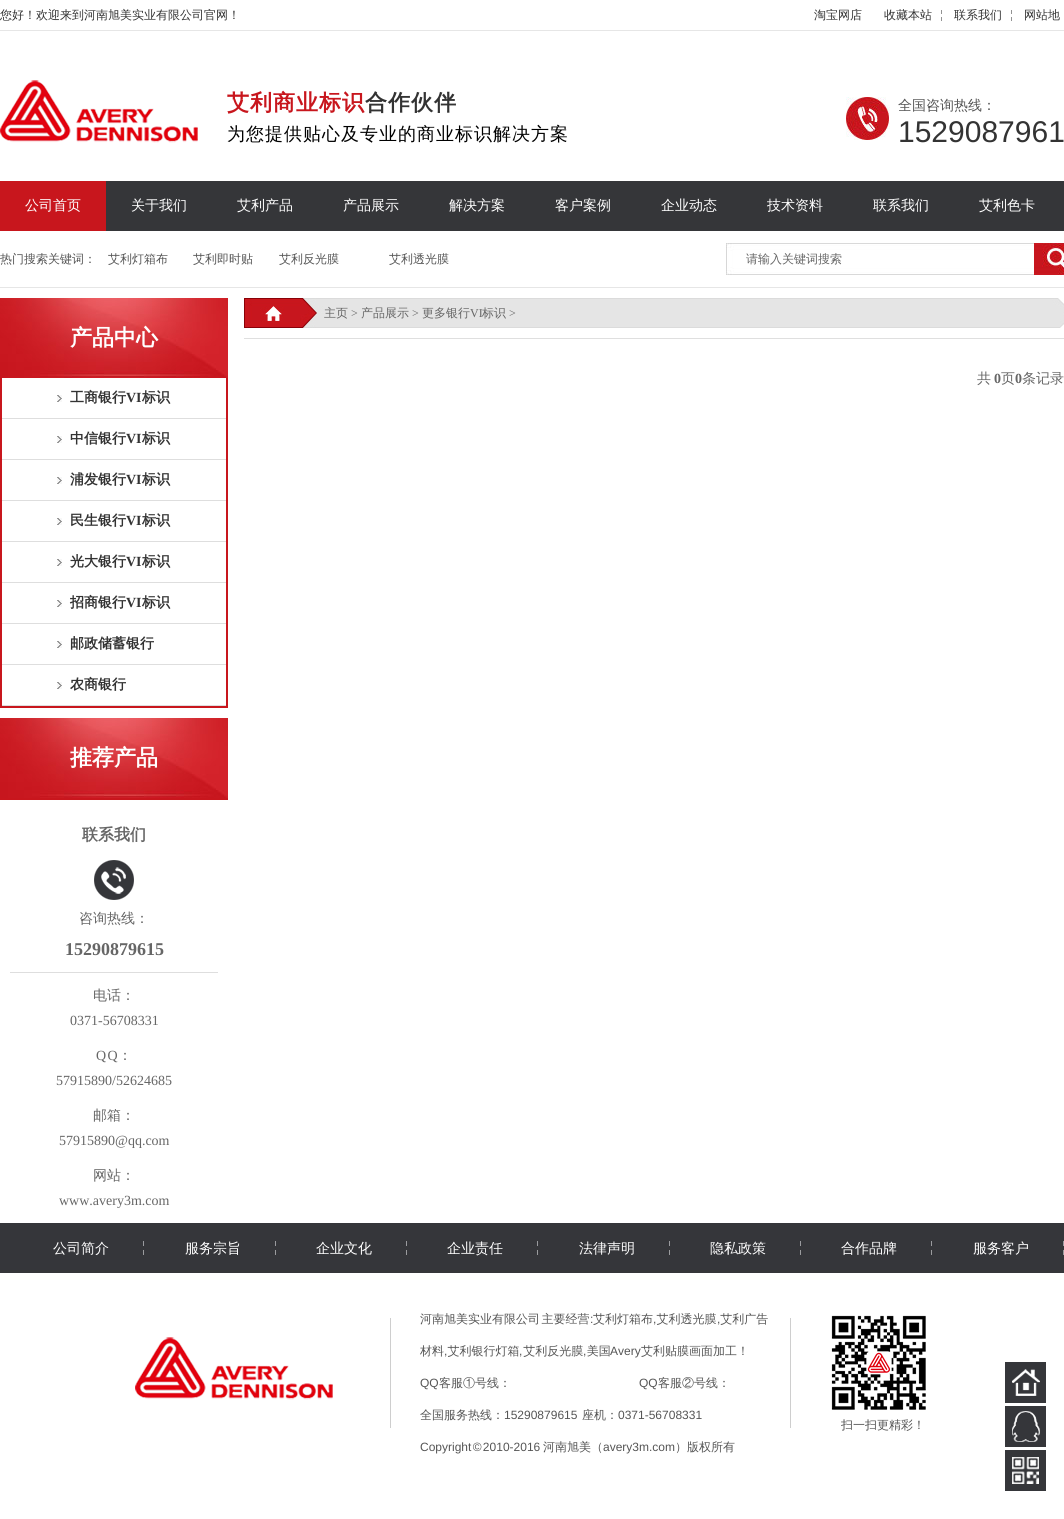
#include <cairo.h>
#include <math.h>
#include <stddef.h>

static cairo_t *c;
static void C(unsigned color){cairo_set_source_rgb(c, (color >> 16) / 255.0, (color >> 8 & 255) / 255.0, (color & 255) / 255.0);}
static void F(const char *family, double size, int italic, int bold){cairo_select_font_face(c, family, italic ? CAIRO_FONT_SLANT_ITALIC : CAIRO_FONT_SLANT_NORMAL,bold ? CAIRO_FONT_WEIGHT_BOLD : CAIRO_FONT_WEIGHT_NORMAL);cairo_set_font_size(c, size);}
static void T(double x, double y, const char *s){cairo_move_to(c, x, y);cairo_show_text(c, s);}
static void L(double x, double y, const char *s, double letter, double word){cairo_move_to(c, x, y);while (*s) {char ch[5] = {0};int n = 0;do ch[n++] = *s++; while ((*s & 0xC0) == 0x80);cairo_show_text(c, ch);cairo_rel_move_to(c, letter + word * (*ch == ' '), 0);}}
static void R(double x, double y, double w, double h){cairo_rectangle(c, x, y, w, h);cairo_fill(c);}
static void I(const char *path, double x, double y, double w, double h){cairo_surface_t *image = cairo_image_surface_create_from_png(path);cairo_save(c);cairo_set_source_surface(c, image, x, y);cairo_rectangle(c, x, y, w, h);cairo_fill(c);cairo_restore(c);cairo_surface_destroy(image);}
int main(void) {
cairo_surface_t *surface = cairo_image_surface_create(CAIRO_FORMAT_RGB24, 1064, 1519);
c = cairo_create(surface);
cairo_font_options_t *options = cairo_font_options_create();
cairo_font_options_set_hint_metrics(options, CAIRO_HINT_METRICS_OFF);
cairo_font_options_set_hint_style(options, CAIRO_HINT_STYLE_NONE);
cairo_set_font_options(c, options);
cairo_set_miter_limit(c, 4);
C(0xffffff);
cairo_paint(c);
C(0xe6e6e6);
R(0,30,1064,1);
F("WenQuanYi Zen Hei Medium",12,0,0);
C(0x333333);
T(0,19,"您好！欢迎来到河南旭美实业有限公司官网！");
T(814,19,"淘宝网店");
I("1.png",941,10,1,11);
T(884,19,"收藏本站");
I("1.png",1011,10,1,11);
T(954,19,"联系我们");
T(1024,19,"网站地");
I("2.png",0,80,198,63);
F("WenQuanYi Zen Hei",22,0,1);
C(0xc8161d);
L(227,110,"艾利商业标识",1,0);
C(0x333333);
L(365,110,"合作伙伴",1,0);
F("WenQuanYi Zen Hei Medium",18,0,0);
C(0x000000);
L(227,140,"为您提供贴心及专业的商业标识解决方案",1,0);
I("3.png",846,97,44,43);
F("WenQuanYi Zen Hei Medium",14,0,0);
C(0x555555);
T(898,110,"全国咨询热线：");
F("Liberation Sans",30,0,0);
C(0x333333);
T(898,142,"1529087961");
C(0x353639);
R(106,181,958,50);
C(0xc8161d);
R(0,181,106,50);
F("WenQuanYi Zen Hei Medium",14,0,0);
C(0xffffff);
T(25,210,"公司首页");
T(131,210,"关于我们");
T(237,210,"艾利产品");
T(343,210,"产品展示");
T(449,210,"解决方案");
T(555,210,"客户案例");
T(661,210,"企业动态");
T(767,210,"技术资料");
T(873,210,"联系我们");
T(979,210,"艾利色卡");
C(0xe6e6e6);
R(0,287,1064,1);
F("WenQuanYi Zen Hei Medium",12,0,0);
C(0x555555);
T(0,263,"热门搜索关键词：");
T(108,263,"艾利灯箱布");
T(193,263,"艾利即时贴");
T(279,263,"艾利反光膜");
T(389,263,"艾利透光膜");
I("4.png",726,243,308,32);
C(0x666666);
T(746,263,"请输入关键词搜索");
I("5.png",1034,243,30,32);
I("6.png",0,298,228,80);
F("WenQuanYi Zen Hei",22,0,1);
C(0xffffff);
T(70,345,"产品中心");
C(0xc8161d);
R(226,378,2,330);
R(0,706,228,2);
R(0,378,2,330);
I("7.png",57,395,5,7);
C(0xdedede);
R(2,418,224,1);
F("WenQuanYi Zen Hei",14,0,1);
C(0x333333);
T(70,402,"工商银行");
F("Liberation Serif",14,0,1);
T(126,402,"VI");
F("WenQuanYi Zen Hei",14,0,1);
T(142,402,"标识");
I("7.png",57,436,5,7);
C(0xdedede);
R(2,459,224,1);
C(0x333333);
T(70,443,"中信银行");
F("Liberation Serif",14,0,1);
T(126,443,"VI");
F("WenQuanYi Zen Hei",14,0,1);
T(142,443,"标识");
I("7.png",57,477,5,7);
C(0xdedede);
R(2,500,224,1);
C(0x333333);
T(70,484,"浦发银行");
F("Liberation Serif",14,0,1);
T(126,484,"VI");
F("WenQuanYi Zen Hei",14,0,1);
T(142,484,"标识");
I("7.png",57,518,5,7);
C(0xdedede);
R(2,541,224,1);
C(0x333333);
T(70,525,"民生银行");
F("Liberation Serif",14,0,1);
T(126,525,"VI");
F("WenQuanYi Zen Hei",14,0,1);
T(142,525,"标识");
I("7.png",57,559,5,7);
C(0xdedede);
R(2,582,224,1);
C(0x333333);
T(70,566,"光大银行");
F("Liberation Serif",14,0,1);
T(126,566,"VI");
F("WenQuanYi Zen Hei",14,0,1);
T(142,566,"标识");
I("7.png",57,600,5,7);
C(0xdedede);
R(2,623,224,1);
C(0x333333);
T(70,607,"招商银行");
F("Liberation Serif",14,0,1);
T(126,607,"VI");
F("WenQuanYi Zen Hei",14,0,1);
T(142,607,"标识");
I("7.png",57,641,5,7);
C(0xdedede);
R(2,664,224,1);
C(0x333333);
T(70,648,"邮政储蓄银行");
I("7.png",57,682,5,7);
C(0xdedede);
R(2,705,224,1);
C(0x333333);
T(70,689,"农商银行");
I("6.png",0,718,228,80);
F("WenQuanYi Zen Hei",22,0,1);
C(0xffffff);
T(70,765,"推荐产品");
C(0xc8161d);
R(0,798,228,2);
F("WenQuanYi Zen Hei",16,0,1);
C(0x666666);
T(82,840,"联系我们");
I("8.png",94,860,40,40);
F("WenQuanYi Zen Hei Medium",14,0,0);
T(79,923,"咨询热线：");
C(0xdedede);
R(10,972,208,1);
F("Liberation Serif",18,0,1);
C(0x666666);
T(65,955,"15290879615");
F("WenQuanYi Zen Hei Medium",14,0,0);
T(93,1000,"电话：");
F("Liberation Serif",14,0,0);
T(70,1025,"0371-56708331");
L(96,1060,"Q Q",0,-2);
F("WenQuanYi Zen Hei Medium",14,0,0);
T(118,1060,"：");
F("Liberation Serif",14,0,0);
T(56,1085,"57915890/52624685");
F("WenQuanYi Zen Hei Medium",14,0,0);
T(93,1120,"邮箱：");
F("Liberation Serif",14,0,0);
T(59,1145,"57915890@qq.com");
F("WenQuanYi Zen Hei Medium",14,0,0);
T(93,1180,"网站：");
F("Liberation Serif",14,0,0);
T(59,1205,"www.avery3m.com");
I("9.png",244,298,820,30);
F("WenQuanYi Zen Hei Medium",12,0,0);
T(324,317,"主页");
F("Liberation Serif",12,0,0);
T(351,317,">");
F("WenQuanYi Zen Hei Medium",12,0,0);
T(361,317,"产品展示");
F("Liberation Serif",12,0,0);
T(412,317,">");
F("WenQuanYi Zen Hei Medium",12,0,0);
T(422,317,"更多银行");
F("Liberation Serif",12,0,0);
T(470,317,"VI");
F("WenQuanYi Zen Hei Medium",12,0,0);
T(482,317,"标识");
F("Liberation Serif",12,0,0);
T(509,317,">");
C(0xdfdfdf);
R(244,338,820,1);
F("WenQuanYi Zen Hei Medium",14,0,0);
C(0x666666);
T(977,383,"共");
F("Liberation Serif",14,0,1);
T(994,383,"0");
F("WenQuanYi Zen Hei Medium",14,0,0);
T(1001,383,"页");
F("Liberation Serif",14,0,1);
T(1015,383,"0");
F("WenQuanYi Zen Hei Medium",14,0,0);
T(1022,383,"条记录");
C(0x35363a);
R(0,1223,1064,50);
I("10.png",143,1241,1,14);
C(0xffffff);
T(53,1253,"公司简介");
I("10.png",275,1241,1,14);
T(185,1253,"服务宗旨");
I("10.png",406,1241,1,14);
T(316,1253,"企业文化");
I("10.png",537,1241,1,14);
T(447,1253,"企业责任");
I("10.png",669,1241,1,14);
T(579,1253,"法律声明");
I("10.png",800,1241,1,14);
T(710,1253,"隐私政策");
I("10.png",931,1241,1,14);
T(841,1253,"合作品牌");
I("10.png",1063,1241,1,14);
T(973,1253,"服务客户");
C(0xcecece);
R(390,1318,1,110);
I("2.png",135,1337,198,63);
F("WenQuanYi Zen Hei Medium",12,0,0);
C(0x555555);
L(420,1323,"河南旭美实业有限公司 主要经营",0,-2);
F("Liberation Sans",12,0,0);
T(590,1323,":");
F("WenQuanYi Zen Hei Medium",12,0,0);
T(593,1323,"艾利灯箱布 艾利透光膜 艾利广告");
F("Liberation Sans",12,0,0);
T(653,1323,",");
T(717,1323,",");
F("WenQuanYi Zen Hei Medium",12,0,0);
T(420,1355,"材料 艾利银行灯箱 艾利反光膜 美国");
F("Liberation Sans",12,0,0);
T(610,1355,"Avery");
F("WenQuanYi Zen Hei Medium",12,0,0);
T(641,1355,"艾利贴膜画面加工！");
F("Liberation Sans",12,0,0);
T(444,1355,",");
T(519,1355,",");
T(583,1355,",");
T(420,1387,"QQ");
F("WenQuanYi Zen Hei Medium",12,0,0);
T(439,1387,"客服①号线：");
F("Liberation Sans",12,0,0);
T(639,1387,"QQ");
F("WenQuanYi Zen Hei Medium",12,0,0);
T(658,1387,"客服②号线：");
T(420,1419,"全国服务热线：");
F("Liberation Sans",12,0,0);
T(504,1419,"15290879615");
F("WenQuanYi Zen Hei Medium",12,0,0);
T(582,1419,"座机：");
F("Liberation Sans",12,0,0);
T(618,1419,"0371-56708331");
L(420,1451,"Copyright © 2010-2016",0,-2);
F("WenQuanYi Zen Hei Medium",12,0,0);
T(543,1451,"河南旭美（");
F("Liberation Sans",12,0,0);
T(603,1451,"avery3m.com");
F("WenQuanYi Zen Hei Medium",12,0,0);
T(675,1451,"）版权所有");
I("11.png",831,1315,95,95);
T(841,1429,"扫一扫更精彩！");
C(0xcecece);
R(790,1318,1,110);
C(0x35363a);
R(1005,1362,41,41);
I("12.png",1012,1369,28,27);
R(1005,1406,41,41);
I("13.png",1012,1411,28,31);
R(1005,1450,41,41);
I("14.png",1012,1457,27,27);
cairo_surface_write_to_png(surface, "o.png");
cairo_font_options_destroy(options);
cairo_destroy(c);
cairo_surface_destroy(surface);
return 0;
}
